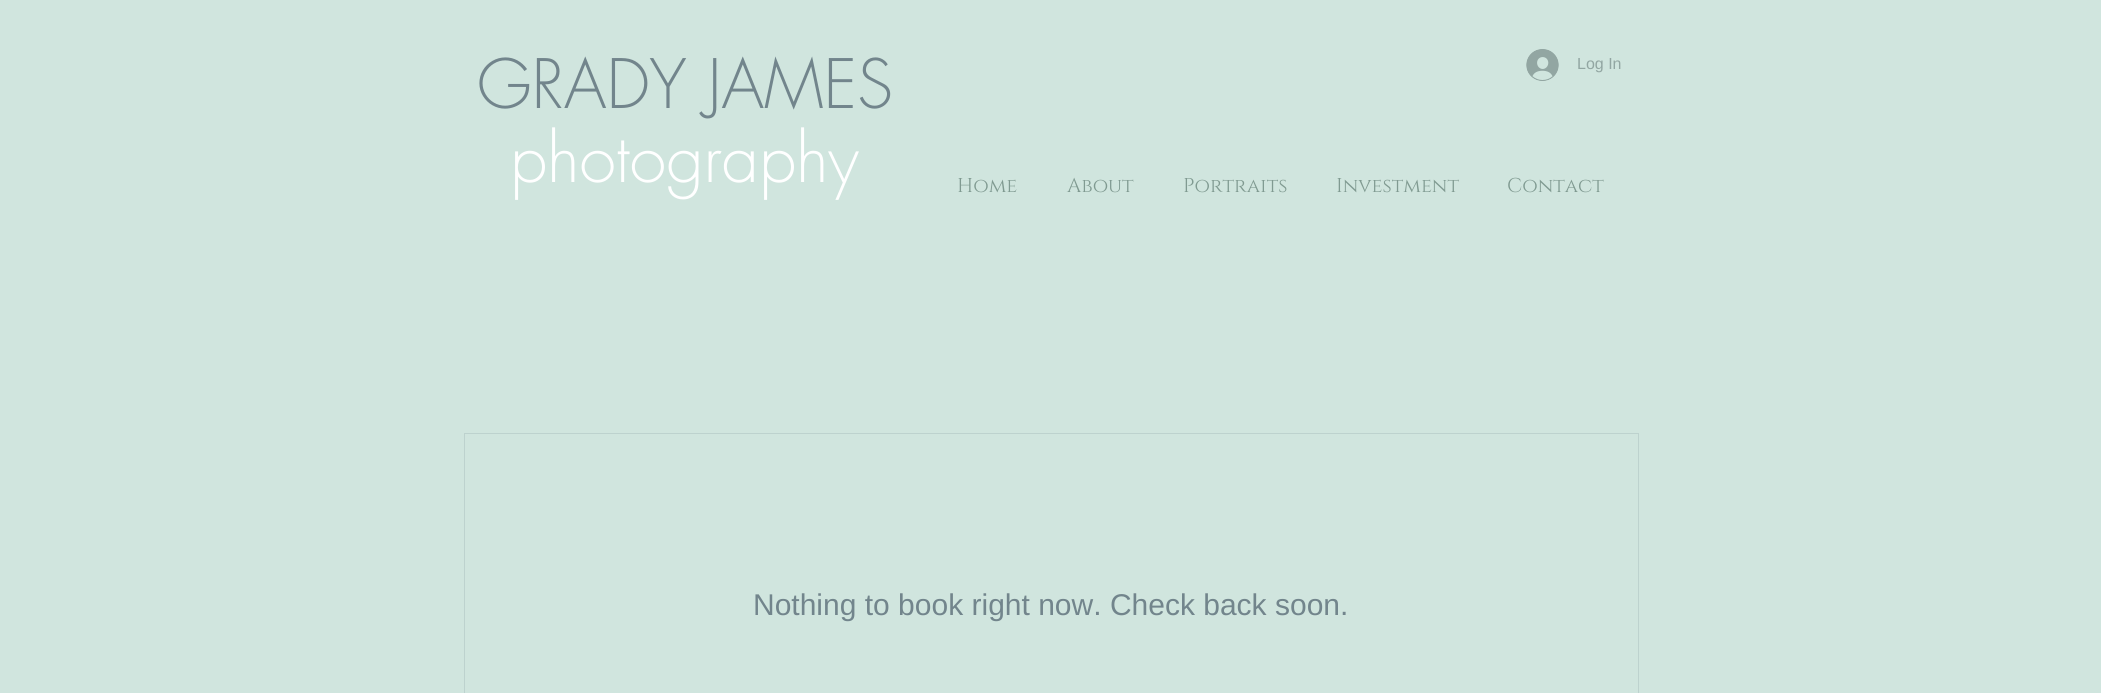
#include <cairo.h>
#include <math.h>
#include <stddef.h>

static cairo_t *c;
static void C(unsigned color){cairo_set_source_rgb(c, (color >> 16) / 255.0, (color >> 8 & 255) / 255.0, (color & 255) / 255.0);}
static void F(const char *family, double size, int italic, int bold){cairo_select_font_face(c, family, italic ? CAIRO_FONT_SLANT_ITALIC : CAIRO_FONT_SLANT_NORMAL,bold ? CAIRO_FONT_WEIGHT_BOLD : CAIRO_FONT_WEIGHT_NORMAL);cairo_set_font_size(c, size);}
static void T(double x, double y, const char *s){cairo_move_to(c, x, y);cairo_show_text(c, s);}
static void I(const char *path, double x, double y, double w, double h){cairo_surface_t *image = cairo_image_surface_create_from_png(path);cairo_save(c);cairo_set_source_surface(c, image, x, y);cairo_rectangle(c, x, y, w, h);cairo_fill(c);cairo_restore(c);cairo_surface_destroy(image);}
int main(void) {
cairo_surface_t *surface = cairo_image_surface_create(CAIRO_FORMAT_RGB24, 2101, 693);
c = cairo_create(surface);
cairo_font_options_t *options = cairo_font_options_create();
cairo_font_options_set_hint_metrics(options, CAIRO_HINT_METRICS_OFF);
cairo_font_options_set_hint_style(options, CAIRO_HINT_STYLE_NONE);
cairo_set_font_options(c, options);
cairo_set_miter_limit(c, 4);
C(0xd0e5de);
cairo_paint(c);
F("futura Light",66.25,0,0);
C(0x72858c);
T(477,108,"GRADY JAMES");
C(0xffffff);
T(510,182,"photography");
I("1.png",1526,49,33,32);
F("Liberation Sans",16,0,0);
C(0x92a6a2);
T(1577,69,"Log In");
F("Cinzel",20,0,0);
C(0x809a91);
T(957,192,"Home");
T(1067,192,"About");
T(1183,192,"Portraits");
T(1336,192,"Investment");
T(1507,192,"Contact");
cairo_rectangle(c,464.5,433.5,1174,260);
C(0xbdd2ce);
cairo_set_line_width(c,1);
cairo_stroke(c);
F("Liberation Sans",30,0,0);
C(0x72858c);
T(753,615,"Nothing to book right now. Check back soon.");
cairo_surface_write_to_png(surface, "o.png");
cairo_font_options_destroy(options);
cairo_destroy(c);
cairo_surface_destroy(surface);
return 0;
}
